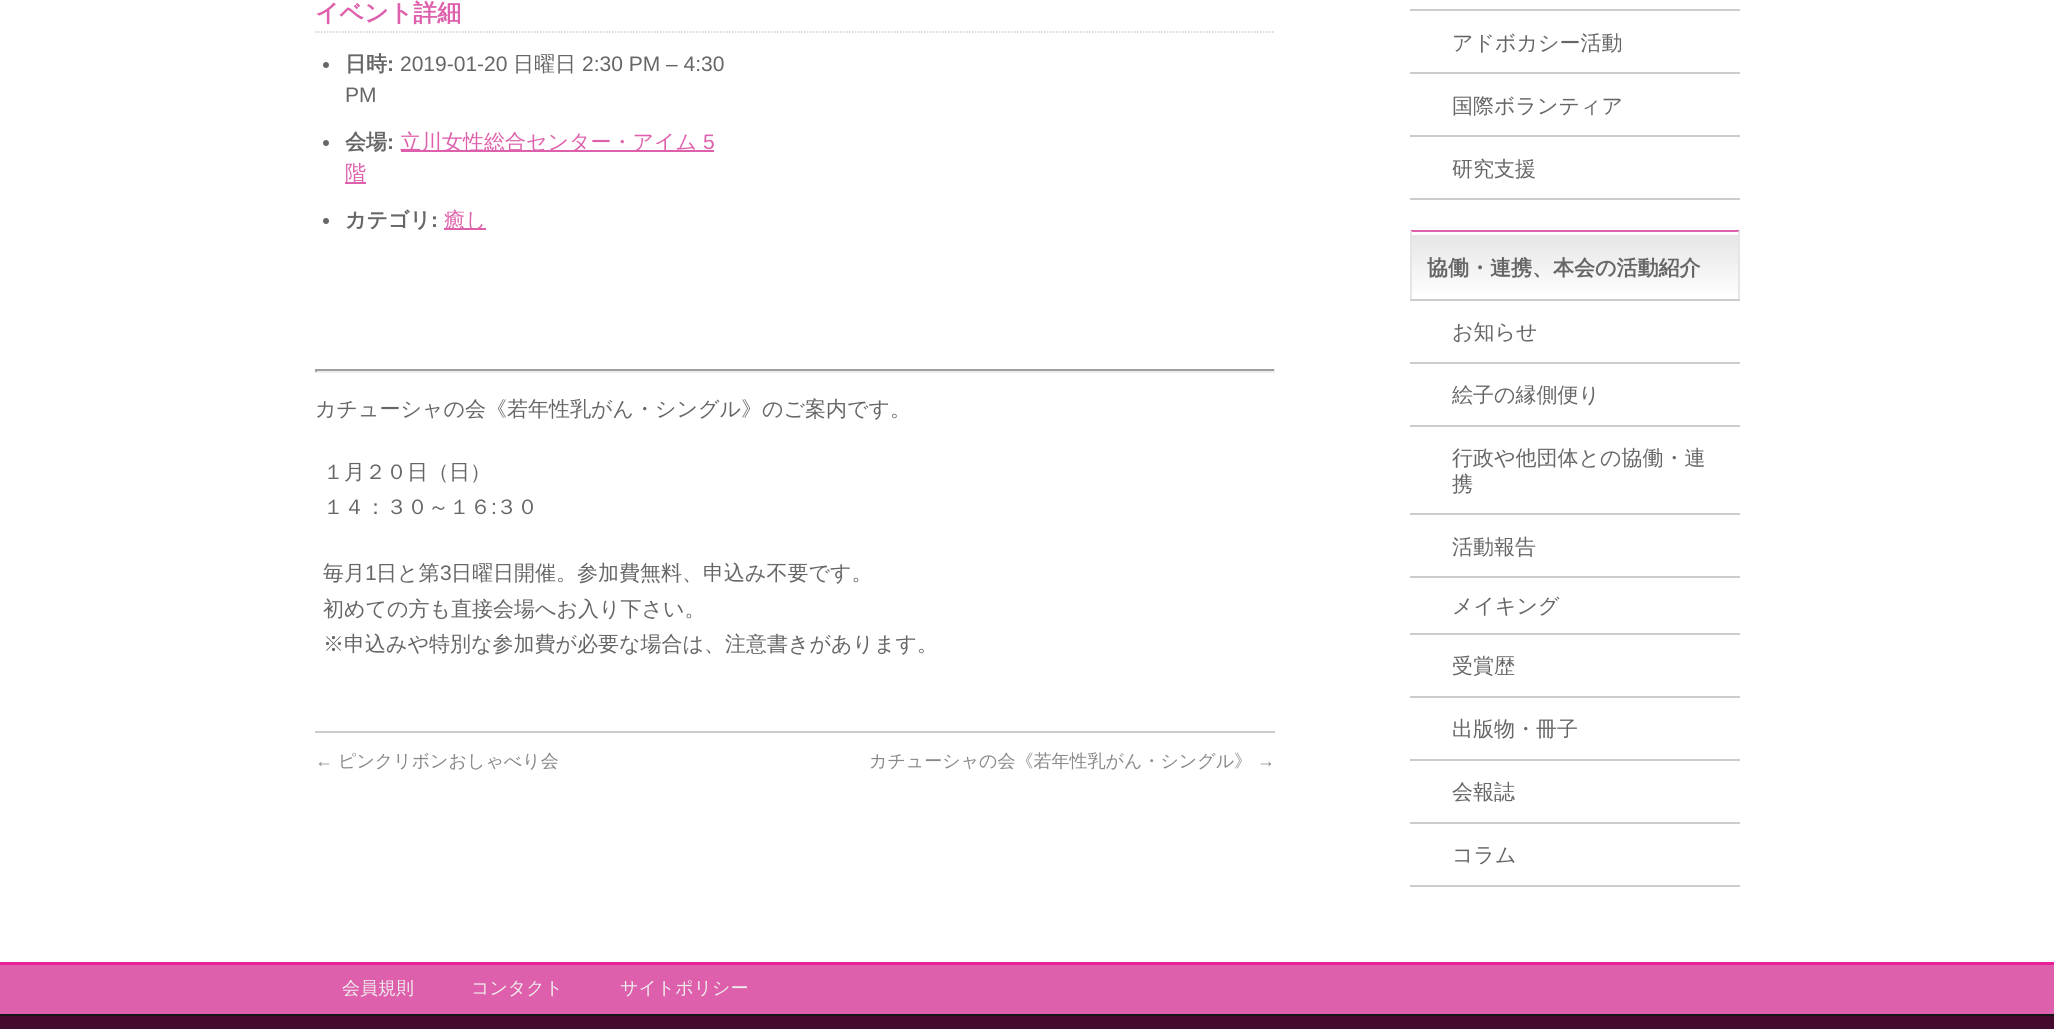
#include <cairo.h>
#include <math.h>
#include <stddef.h>

static cairo_t *c;
static void C(unsigned color){cairo_set_source_rgb(c, (color >> 16) / 255.0, (color >> 8 & 255) / 255.0, (color & 255) / 255.0);}
static void F(const char *family, double size, int italic, int bold){cairo_select_font_face(c, family, italic ? CAIRO_FONT_SLANT_ITALIC : CAIRO_FONT_SLANT_NORMAL,bold ? CAIRO_FONT_WEIGHT_BOLD : CAIRO_FONT_WEIGHT_NORMAL);cairo_set_font_size(c, size);}
static void T(double x, double y, const char *s){cairo_move_to(c, x, y);cairo_show_text(c, s);}
static void R(double x, double y, double w, double h){cairo_rectangle(c, x, y, w, h);cairo_fill(c);}
int main(void) {
cairo_surface_t *surface = cairo_image_surface_create(CAIRO_FORMAT_RGB24, 2054, 1029);
c = cairo_create(surface);
cairo_font_options_t *options = cairo_font_options_create();
cairo_font_options_set_hint_metrics(options, CAIRO_HINT_METRICS_OFF);
cairo_font_options_set_hint_style(options, CAIRO_HINT_STYLE_NONE);
cairo_set_font_options(c, options);
cairo_set_miter_limit(c, 4);
cairo_pattern_t *gradient;
C(0xffffff);
cairo_paint(c);
cairo_new_path(c);
cairo_move_to(c,315,32);
cairo_line_to(c,1275,32);
C(0xcccccc);
cairo_set_line_width(c,1.5);
cairo_set_dash(c,(double[]){1.5,1.5},2,0);
cairo_stroke(c);
F("WenQuanYi Zen Hei",24,0,1);
C(0xde5fab);
T(315,21,"イベント詳細");
C(0x666666);
cairo_new_path(c);
cairo_arc(c,326,65,3,0,2 * M_PI);
cairo_fill(c);
F("WenQuanYi Zen Hei",21,0,1);
T(345,71,"日時");
F("Liberation Sans",21,0,1);
T(387,71,":");
F("Liberation Sans",21,0,0);
T(400,71,"2019-01-20");
F("WenQuanYi Zen Hei Medium",21,0,0);
T(513,71,"日曜日");
F("Liberation Sans",21,0,0);
T(582,71,"2:30 PM – 4:30");
T(345,102,"PM");
cairo_new_path(c);
cairo_arc(c,326,143,3,0,2 * M_PI);
cairo_fill(c);
F("WenQuanYi Zen Hei",21,0,1);
T(345,149,"会場");
F("Liberation Sans",21,0,1);
T(387,149,":");
C(0xde5fab);
R(401,150,313,2);
F("WenQuanYi Zen Hei Medium",21,0,0);
T(400,149,"立川女性総合センター・アイム");
F("Liberation Sans",21,0,0);
T(703,149,"5");
R(345,182,21,2);
F("WenQuanYi Zen Hei Medium",21,0,0);
T(345,180,"階");
C(0x666666);
cairo_new_path(c);
cairo_arc(c,326,221,3,0,2 * M_PI);
cairo_fill(c);
F("WenQuanYi Zen Hei",21,0,1);
T(345,227,"カテゴリ");
F("Liberation Sans",21,0,1);
T(431,227,":");
C(0xde5fab);
R(444,228,42,2);
F("WenQuanYi Zen Hei Medium",21,0,0);
T(444,227,"癒し");
C(0x9f9f9f);
R(315,369,960,2);
C(0xeeeeee);
R(1274,369,1,3);
R(315,371,960,2);
C(0x9f9f9f);
R(315,369,2,3);
C(0x666666);
T(315,416,"カチューシャの会《若年性乳がん・シングル》のご案内です。");
T(323,479,"１月２０日（日）");
T(323,514,"１４：３０～１６");
F("Liberation Sans",21,0,0);
T(491,514,":");
F("WenQuanYi Zen Hei Medium",21,0,0);
T(496,514,"３０");
T(323,580,"毎月");
F("Liberation Sans",21,0,0);
T(365,580,"1");
F("WenQuanYi Zen Hei Medium",21,0,0);
T(376,580,"日と第");
F("Liberation Sans",21,0,0);
T(440,580,"3");
F("WenQuanYi Zen Hei Medium",21,0,0);
T(451,580,"日曜日開催。参加費無料、申込み不要です。");
T(323,616,"初めての方も直接会場へお入り下さい。");
T(323,651,"※申込みや特別な参加費が必要な場合は、注意書きがあります。");
C(0xcccccc);
R(315,731,960,2);
F("Liberation Sans",18,0,0);
C(0x888888);
T(315,767,"←");
F("WenQuanYi Zen Hei Medium",18,0,0);
T(338,767,"ピンクリボンおしゃべり会");
T(869,767,"カチューシャの会《若年性乳がん・シングル》");
F("Liberation Sans",18,0,0);
T(1257,767,"→");
C(0xcccccc);
R(1410,9,330,2);
R(1410,72,330,2);
F("WenQuanYi Zen Hei Medium",21,0,0);
C(0x666666);
T(1452,50,"アドボカシー活動");
C(0xcccccc);
R(1410,135,330,2);
C(0x666666);
T(1452,113,"国際ボランティア");
C(0xcccccc);
R(1410,198,330,2);
C(0x666666);
T(1452,176,"研究支援");
gradient = cairo_pattern_create_linear(1412,233,1412,299);
cairo_pattern_add_color_stop_rgba(gradient,0,0.898,0.898,0.898,1);
cairo_pattern_add_color_stop_rgba(gradient,1,1,1,1,1);
cairo_set_source(c,gradient);
cairo_pattern_destroy(gradient);
R(1412,235,327,58);
C(0xde5fab);
cairo_new_path(c);
cairo_move_to(c,1410,230);
cairo_line_to(c,1740,230);
cairo_line_to(c,1738,232);
cairo_line_to(c,1412,232);
cairo_close_path(c);
cairo_fill(c);
C(0xe5e5e5);
cairo_new_path(c);
cairo_move_to(c,1740,230);
cairo_line_to(c,1740,300);
cairo_line_to(c,1738,298);
cairo_line_to(c,1738,232);
cairo_close_path(c);
cairo_fill(c);
C(0xcccccc);
R(1410,299,330,2);
C(0xe5e5e5);
cairo_new_path(c);
cairo_move_to(c,1410,300);
cairo_line_to(c,1410,230);
cairo_line_to(c,1412,232);
cairo_line_to(c,1412,298);
cairo_close_path(c);
cairo_fill(c);
F("WenQuanYi Zen Hei",21,0,1);
C(0x666666);
T(1427,275,"協働・連携、本会の活動紹介");
C(0xcccccc);
R(1410,362,330,2);
F("WenQuanYi Zen Hei Medium",21,0,0);
C(0x666666);
T(1452,339,"お知らせ");
C(0xcccccc);
R(1410,425,330,2);
C(0x666666);
T(1452,402,"絵子の縁側便り");
C(0xcccccc);
R(1410,513,330,2);
C(0x666666);
T(1452,465,"行政や他団体との協働・連");
T(1452,491,"携");
C(0xcccccc);
R(1410,633,330,2);
C(0x666666);
T(1452,554,"活動報告");
C(0xcccccc);
R(1410,576,330,2);
C(0x666666);
T(1452,613,"メイキング");
C(0xcccccc);
R(1410,696,330,2);
C(0x666666);
T(1452,673,"受賞歴");
C(0xcccccc);
R(1410,759,330,2);
C(0x666666);
T(1452,736,"出版物・冊子");
C(0xcccccc);
R(1410,822,330,2);
C(0x666666);
T(1452,799,"会報誌");
C(0xcccccc);
R(1410,885,330,2);
C(0x666666);
T(1452,862,"コラム");
C(0xde5fab);
R(0,965,2054,49);
C(0xe81f96);
R(0,962,2054,3);
cairo_save(c);
cairo_rectangle(c,315,980,1425,19);
cairo_clip(c);
F("WenQuanYi Zen Hei Medium",18,0,0);
C(0xefefef);
T(342,994,"会員規則");
cairo_restore(c);
F("WenQuanYi Zen Hei Medium",18,0,0);
C(0xefefef);
T(471,994,"コンタクト");
T(620,994,"サイトポリシー");
C(0x45092d);
R(0,1016,2054,13);
C(0x151515);
R(0,1014,2054,2);
cairo_surface_write_to_png(surface, "o.png");
cairo_font_options_destroy(options);
cairo_destroy(c);
cairo_surface_destroy(surface);
return 0;
}
